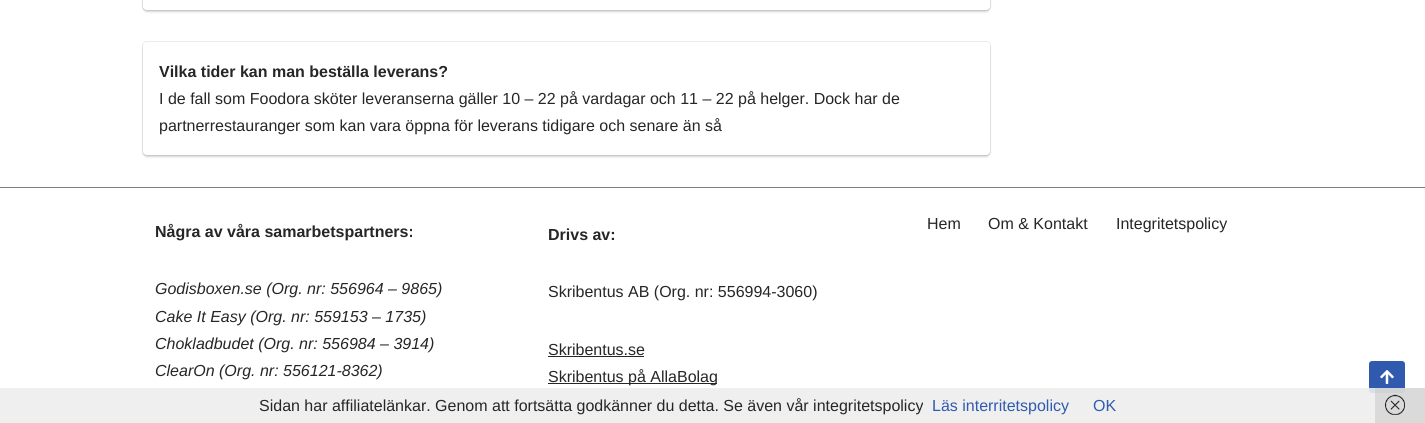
#include <cairo.h>
#include <math.h>
#include <stddef.h>

static cairo_t *c;
static void C(unsigned color){cairo_set_source_rgb(c, (color >> 16) / 255.0, (color >> 8 & 255) / 255.0, (color & 255) / 255.0);}
static void F(const char *family, double size, int italic, int bold){cairo_select_font_face(c, family, italic ? CAIRO_FONT_SLANT_ITALIC : CAIRO_FONT_SLANT_NORMAL,bold ? CAIRO_FONT_WEIGHT_BOLD : CAIRO_FONT_WEIGHT_NORMAL);cairo_set_font_size(c, size);}
static void T(double x, double y, const char *s){cairo_move_to(c, x, y);cairo_show_text(c, s);}
static void R(double x, double y, double w, double h){cairo_rectangle(c, x, y, w, h);cairo_fill(c);}
static void Q(double x, double y, double w, double h, double r){cairo_new_sub_path(c);cairo_arc(c, x + w - r, y + h - r, r, 0, M_PI / 2);cairo_arc(c, x + r, y + h - r, r, M_PI / 2, M_PI);cairo_arc(c, x + r, y + r, r, M_PI, 1.5 * M_PI);cairo_arc(c, x + w - r, y + r, r, 1.5 * M_PI, 2 * M_PI);cairo_close_path(c);}
static void S(double x, double y, double w, double h, double r, double blur, double alpha){cairo_push_group_with_content(c, CAIRO_CONTENT_ALPHA);cairo_set_operator(c, CAIRO_OPERATOR_SOURCE);for (int i = 15; i >= -15 && fmin(w, h) + blur * i / 3 > 0; i -= 2) {double e = blur * i / 6;cairo_set_source_rgba(c, 0, 0, 0, alpha * erfc((i - 1) / 8.5) / 2);Q(x - e, y - e, w + 2 * e, h + 2 * e, fmax(0, fmin(r + e + blur * .6, fmin(w, h) / 2 + e)));cairo_fill(c);}cairo_pattern_t *soft = cairo_pop_group(c);cairo_mask(c, soft);cairo_pattern_destroy(soft);}
static void I(const char *path, double x, double y, double w, double h){cairo_surface_t *image = cairo_image_surface_create_from_png(path);cairo_save(c);cairo_set_source_surface(c, image, x, y);cairo_rectangle(c, x, y, w, h);cairo_fill(c);cairo_restore(c);cairo_surface_destroy(image);}
int main(void) {
cairo_surface_t *surface = cairo_image_surface_create(CAIRO_FORMAT_RGB24, 1425, 423);
c = cairo_create(surface);
cairo_font_options_t *options = cairo_font_options_create();
cairo_font_options_set_hint_metrics(options, CAIRO_HINT_METRICS_OFF);
cairo_font_options_set_hint_style(options, CAIRO_HINT_STYLE_NONE);
cairo_set_font_options(c, options);
cairo_set_miter_limit(c, 4);
C(0xffffff);
cairo_paint(c);
Q(142.5,-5.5,848,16,4.5);
C(0xebebeb);
cairo_set_line_width(c,1);
cairo_stroke(c);
C(0x000000);
S(143,-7,847,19,4,1,.16);
C(0xffffff);
Q(143,-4,847,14,4);
cairo_fill(c);
Q(142.5,41.5,848,114,4.5);
C(0xebebeb);
cairo_stroke(c);
C(0x000000);
S(143,44,847,113,4,1,.16);
C(0xffffff);
Q(143,42,847,113,4);
cairo_fill(c);
F("Liberation Sans",16,0,1);
C(0x272626);
T(159,77,"Vilka tider kan man beställa leverans?");
F("Liberation Sans",16,0,0);
T(159,104,"I de fall som Foodora sköter leveranserna gäller 10 – 22 på vardagar och 11 – 22 på helger. Dock har de");
T(159,131,"partnerrestauranger som kan vara öppna för leverans tidigare och senare än så");
C(0x808080);
R(0,187,1425,1);
F("Liberation Sans",16,0,1);
C(0x272626);
T(155,237,"Några av våra samarbetspartners:");
F("Liberation Sans",16,1,0);
T(155,294,"Godisboxen.se (Org. nr: 556964 – 9865)");
T(155,322,"Cake It Easy (Org. nr: 559153 – 1735)");
T(155,349,"Chokladbudet (Org. nr: 556984 – 3914)");
T(155,376,"ClearOn (Org. nr: 556121-8362)");
F("Liberation Sans",16,0,1);
T(548,240,"Drivs av:");
F("Liberation Sans",16,0,0);
T(548,297,"Skribentus AB (Org. nr: 556994-3060)");
T(548,355,"Skribentus.se");
R(548,356,96,1);
R(548,383,169,1);
T(548,382,"Skribentus på AllaBolag");
T(927,229,"Hem");
T(988,229,"Om & Kontakt");
T(1116,229,"Integritetspolicy");
C(0x2f5aae);
Q(1369,361,36,32,3);
cairo_fill(c);
I("1.png",1380,370,14,14);
cairo_set_source_rgba(c,0.933,0.933,0.933,0.9);
R(0,388,1425,35);
C(0x272626);
T(259,411,"Sidan har affiliatelänkar. Genom att fortsätta godkänner du detta. Se även vår integritetspolicy");
C(0x2f5aae);
T(932,411,"Läs interritetspolicy");
T(1093,411,"OK");
cairo_set_source_rgba(c,0.8,0.8,0.8,0.6);
R(1375,388,50,35);
I("2.png",1385,394,20,21);
cairo_surface_write_to_png(surface, "o.png");
cairo_font_options_destroy(options);
cairo_destroy(c);
cairo_surface_destroy(surface);
return 0;
}
